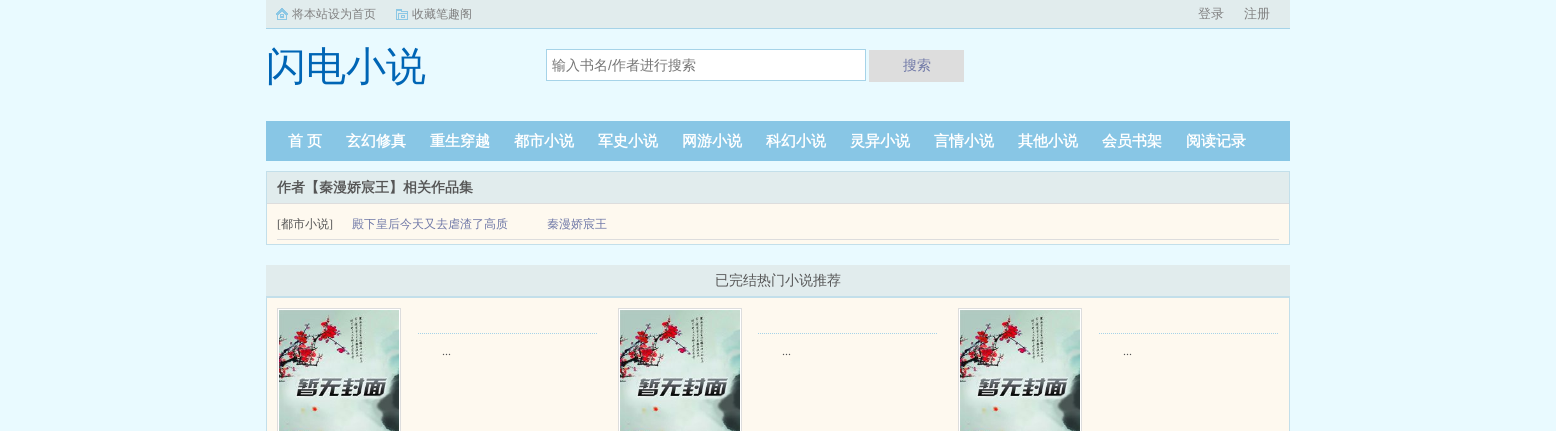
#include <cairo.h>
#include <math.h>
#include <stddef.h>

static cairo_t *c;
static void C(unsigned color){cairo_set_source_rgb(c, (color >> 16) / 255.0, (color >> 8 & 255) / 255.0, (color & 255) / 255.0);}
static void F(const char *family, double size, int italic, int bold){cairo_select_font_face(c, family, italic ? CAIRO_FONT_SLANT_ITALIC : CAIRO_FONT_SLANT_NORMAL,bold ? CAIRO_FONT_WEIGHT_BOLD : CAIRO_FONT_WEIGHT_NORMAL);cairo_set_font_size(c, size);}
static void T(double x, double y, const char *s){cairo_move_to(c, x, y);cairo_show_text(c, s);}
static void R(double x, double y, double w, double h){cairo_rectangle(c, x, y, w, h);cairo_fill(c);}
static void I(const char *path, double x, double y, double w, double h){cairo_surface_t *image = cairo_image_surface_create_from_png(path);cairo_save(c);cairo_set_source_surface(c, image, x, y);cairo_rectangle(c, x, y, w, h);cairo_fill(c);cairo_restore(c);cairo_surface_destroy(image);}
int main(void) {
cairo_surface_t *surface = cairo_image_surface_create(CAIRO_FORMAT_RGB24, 1556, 431);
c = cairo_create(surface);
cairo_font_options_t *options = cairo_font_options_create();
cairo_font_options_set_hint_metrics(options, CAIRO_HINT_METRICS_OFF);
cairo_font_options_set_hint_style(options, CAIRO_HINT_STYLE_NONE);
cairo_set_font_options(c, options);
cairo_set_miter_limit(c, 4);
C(0xe9faff);
cairo_paint(c);
C(0xe1eced);
R(266,0,1024,28);
C(0xa6d3e8);
R(266,28,1024,1);
I("1.png",276,8,12,12);
F("WenQuanYi Zen Hei Medium",12,0,0);
C(0x808080);
T(292,18,"将本站设为首页");
I("2.png",396,9,12,11);
T(412,18,"收藏笔趣阁");
F("WenQuanYi Zen Hei Medium",13,0,0);
T(1198,18,"登录");
T(1244,18,"注册");
F("WenQuanYi Zen Hei Medium",40,0,0);
C(0x0065b5);
T(266,80,"闪电小说");
C(0xffffff);
cairo_rectangle(c,546.5,49.5,319,31);
cairo_fill_preserve(c);
C(0xa6d3e8);
cairo_set_line_width(c,1);
cairo_stroke(c);
F("WenQuanYi Zen Hei Medium",14,0,0);
C(0x757575);
T(552,70,"输入书名");
F("Liberation Sans",14,0,0);
T(608,70,"/");
F("WenQuanYi Zen Hei Medium",14,0,0);
T(612,70,"作者进行搜索");
C(0xdddddd);
R(869,50,95,32);
C(0x6f78a7);
T(903,70,"搜索");
C(0x88c6e5);
R(266,121,1024,40);
F("WenQuanYi Zen Hei",15,0,1);
C(0xffffff);
T(288,146,"首");
T(307,146,"页");
T(346,146,"玄幻修真");
T(430,146,"重生穿越");
T(514,146,"都市小说");
T(598,146,"军史小说");
T(682,146,"网游小说");
T(766,146,"科幻小说");
T(850,146,"灵异小说");
T(934,146,"言情小说");
T(1018,146,"其他小说");
T(1102,146,"会员书架");
T(1186,146,"阅读记录");
C(0xfef9ef);
R(267,204,1022,40);
cairo_rectangle(c,266.5,171.5,1023,73);
C(0xc3dfea);
cairo_stroke(c);
C(0xe1eced);
R(267,172,1022,31);
C(0xdddddd);
R(267,203,1022,1);
F("WenQuanYi Zen Hei",14,0,1);
C(0x555555);
T(277,192,"作者【秦漫娇宸王】相关作品集");
C(0xdddddd);
R(277,239,1002,1);
F("Liberation Serif",12,0,0);
C(0x555555);
T(277,228,"[");
F("WenQuanYi Zen Hei Medium",12,0,0);
T(281,228,"都市小说");
F("Liberation Serif",12,0,0);
T(329,228,"]");
F("WenQuanYi Zen Hei Medium",12,0,0);
C(0x6f78a7);
T(352,228,"殿下皇后今天又去虐渣了高质");
T(547,228,"秦漫娇宸王");
C(0xe1eced);
R(266,265,1024,31);
C(0xc3dfea);
R(266,296,1024,1);
F("WenQuanYi Zen Hei Medium",14,0,0);
C(0x555555);
T(715,285,"已完结热门小说推荐");
C(0xfef9ef);
cairo_rectangle(c,266.5,297.5,1023,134);
cairo_fill_preserve(c);
C(0xc3dfea);
cairo_stroke(c);
C(0xffffff);
cairo_rectangle(c,277.5,308.5,123,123);
cairo_fill_preserve(c);
C(0xdddddd);
cairo_stroke(c);
I("3.png",279,310,120,121);
cairo_new_path(c);
cairo_move_to(c,418,333.5);
cairo_line_to(c,598,333.5);
C(0xa6d3e8);
cairo_set_dash(c,(double[]){1,1},2,0);
cairo_stroke(c);
F("Liberation Serif",12,0,0);
C(0x555555);
T(442,355,"...");
C(0xffffff);
cairo_rectangle(c,618.5,308.5,123,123);
cairo_fill_preserve(c);
C(0xdddddd);
cairo_set_dash(c,NULL,0,0);
cairo_stroke(c);
I("4.png",620,310,120,121);
cairo_new_path(c);
cairo_move_to(c,758,333.5);
cairo_line_to(c,938,333.5);
C(0xa6d3e8);
cairo_set_dash(c,(double[]){1,1},2,0);
cairo_stroke(c);
C(0x555555);
T(782,355,"...");
C(0xffffff);
cairo_rectangle(c,958.5,308.5,123,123);
cairo_fill_preserve(c);
C(0xdddddd);
cairo_set_dash(c,NULL,0,0);
cairo_stroke(c);
I("5.png",960,310,120,121);
cairo_new_path(c);
cairo_move_to(c,1099,333.5);
cairo_line_to(c,1279,333.5);
C(0xa6d3e8);
cairo_set_dash(c,(double[]){1,1},2,0);
cairo_stroke(c);
C(0x555555);
T(1123,355,"...");
cairo_surface_write_to_png(surface, "o.png");
cairo_font_options_destroy(options);
cairo_destroy(c);
cairo_surface_destroy(surface);
return 0;
}
